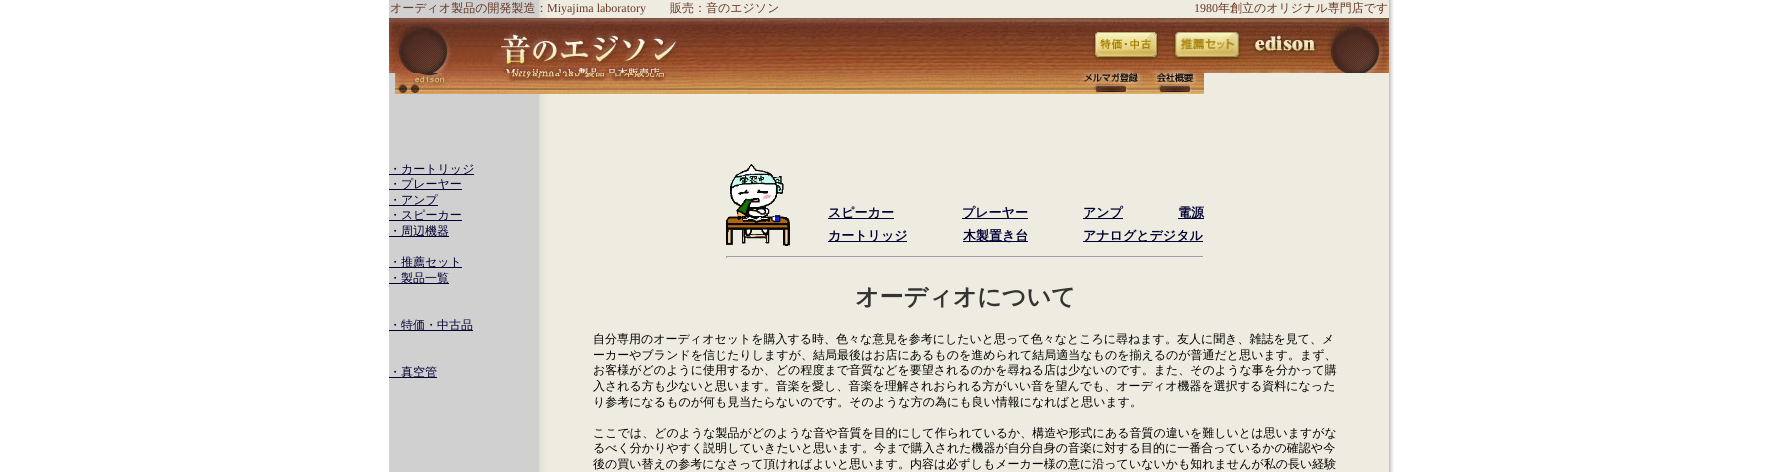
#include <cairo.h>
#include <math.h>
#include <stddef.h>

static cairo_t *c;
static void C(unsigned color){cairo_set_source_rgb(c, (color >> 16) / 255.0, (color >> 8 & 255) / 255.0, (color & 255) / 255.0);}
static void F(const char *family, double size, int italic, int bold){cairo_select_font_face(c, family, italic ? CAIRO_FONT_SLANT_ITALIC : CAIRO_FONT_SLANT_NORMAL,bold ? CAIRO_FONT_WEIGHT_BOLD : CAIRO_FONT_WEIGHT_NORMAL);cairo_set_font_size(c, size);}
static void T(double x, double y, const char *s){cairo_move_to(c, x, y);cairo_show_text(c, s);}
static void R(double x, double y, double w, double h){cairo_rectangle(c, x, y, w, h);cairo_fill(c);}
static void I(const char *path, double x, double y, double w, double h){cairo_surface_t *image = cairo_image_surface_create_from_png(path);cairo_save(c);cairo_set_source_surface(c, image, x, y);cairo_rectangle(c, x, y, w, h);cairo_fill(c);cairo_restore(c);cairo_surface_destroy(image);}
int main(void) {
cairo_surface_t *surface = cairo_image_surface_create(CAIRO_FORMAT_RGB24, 1788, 472);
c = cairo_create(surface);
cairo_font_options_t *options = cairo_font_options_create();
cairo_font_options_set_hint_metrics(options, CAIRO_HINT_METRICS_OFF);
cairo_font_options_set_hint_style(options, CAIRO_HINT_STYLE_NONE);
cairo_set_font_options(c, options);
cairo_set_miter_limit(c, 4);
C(0xffffff);
cairo_paint(c);
I("1.png",389,0,1005,472);
F("WenQuanYi Zen Hei Medium",12,0,0);
C(0x683726);
T(390,12,"オーディオ製品の開発製造：");
F("Liberation Serif",12,0,0);
T(547,12,"Miyajima laboratory");
F("WenQuanYi Zen Hei Medium",12,0,0);
T(670,12,"販売：音のエジソン");
F("Liberation Serif",12,0,0);
T(1194,12,"1980");
F("WenQuanYi Zen Hei Medium",12,0,0);
T(1218,12,"年創立のオリジナル専門店です");
I("2.png",389,18,1000,13);
I("3.png",389,31,293,42);
I("4.png",682,31,405,42);
I("5.png",1087,31,79,28);
I("6.png",1166,31,82,28);
I("7.png",1248,31,74,28);
I("8.png",1087,59,235,14);
I("9.png",1322,31,67,42);
I("10.png",395,73,683,21);
I("11.png",1078,73,67,21);
I("12.png",1145,73,59,21);
C(0x000033);
R(389,174,85,1);
T(389,173,"・カートリッジ");
R(389,189,73,1);
T(389,188,"・プレーヤー");
R(389,205,49,1);
T(389,204,"・アンプ");
R(389,220,73,1);
T(389,219,"・スピーカー");
R(389,236,60,1);
T(389,235,"・周辺機器");
R(389,267,73,1);
T(389,266,"・推薦セット");
R(389,283,60,1);
T(389,282,"・製品一覧");
R(389,330,84,1);
T(389,329,"・特価・中古品");
R(389,377,48,1);
T(389,376,"・真空管");
I("13.png",726,164,64,82);
R(828,218,66,1);
F("WenQuanYi Zen Hei",13,0,1);
T(828,217,"スピーカー");
R(962,218,66,1);
T(962,217,"プレーヤー");
R(1083,218,40,1);
T(1083,217,"アンプ");
R(1178,218,26,1);
T(1178,217,"電源");
R(828,241,79,1);
T(828,240,"カートリッジ");
R(963,241,65,1);
T(963,240,"木製置き台");
R(1083,241,120,1);
T(1083,240,"アナログとデジタル");
C(0x9f9f9f);
R(726,256,478,1);
C(0xeeeeee);
R(1203,256,1,2);
R(726,257,478,1);
C(0x9f9f9f);
R(726,256,1,2);
F("WenQuanYi Zen Hei",24,0,1);
C(0x333333);
T(855,305,"オーディオについて");
F("WenQuanYi Zen Hei Medium",12,0,0);
C(0x000000);
T(593,343,"自分専用のオーディオセットを購入する時、色々な意見を参考にしたいと思って色々なところに尋ねます。友人に聞き、雑誌を見て、メ");
T(593,359,"ーカーやブランドを信じたりしますが、結局最後はお店にあるものを進められて結局適当なものを揃えるのが普通だと思います。まず、");
T(593,374,"お客様がどのように使用するか、どの程度まで音質などを要望されるのかを尋ねる店は少ないのです。また、そのような事を分かって購");
T(593,390,"入される方も少ないと思います。音楽を愛し、音楽を理解されおられる方がいい音を望んでも、オーディオ機器を選択する資料になった");
T(593,406,"り参考になるものが何も見当たらないのです。そのような方の為にも良い情報になればと思います。");
T(593,437,"ここでは、どのような製品がどのような音や音質を目的にして作られているか、構造や形式にある音質の違いを難しいとは思いますがな");
T(593,452,"るべく分かりやすく説明していきたいと思います。今まで購入された機器が自分自身の音楽に対する目的に一番合っているかの確認や今");
T(593,468,"後の買い替えの参考になさって頂ければよいと思います。内容は必ずしもメーカー様の意に沿っていないかも知れませんが私の長い経験");
cairo_surface_write_to_png(surface, "o.png");
cairo_font_options_destroy(options);
cairo_destroy(c);
cairo_surface_destroy(surface);
return 0;
}
